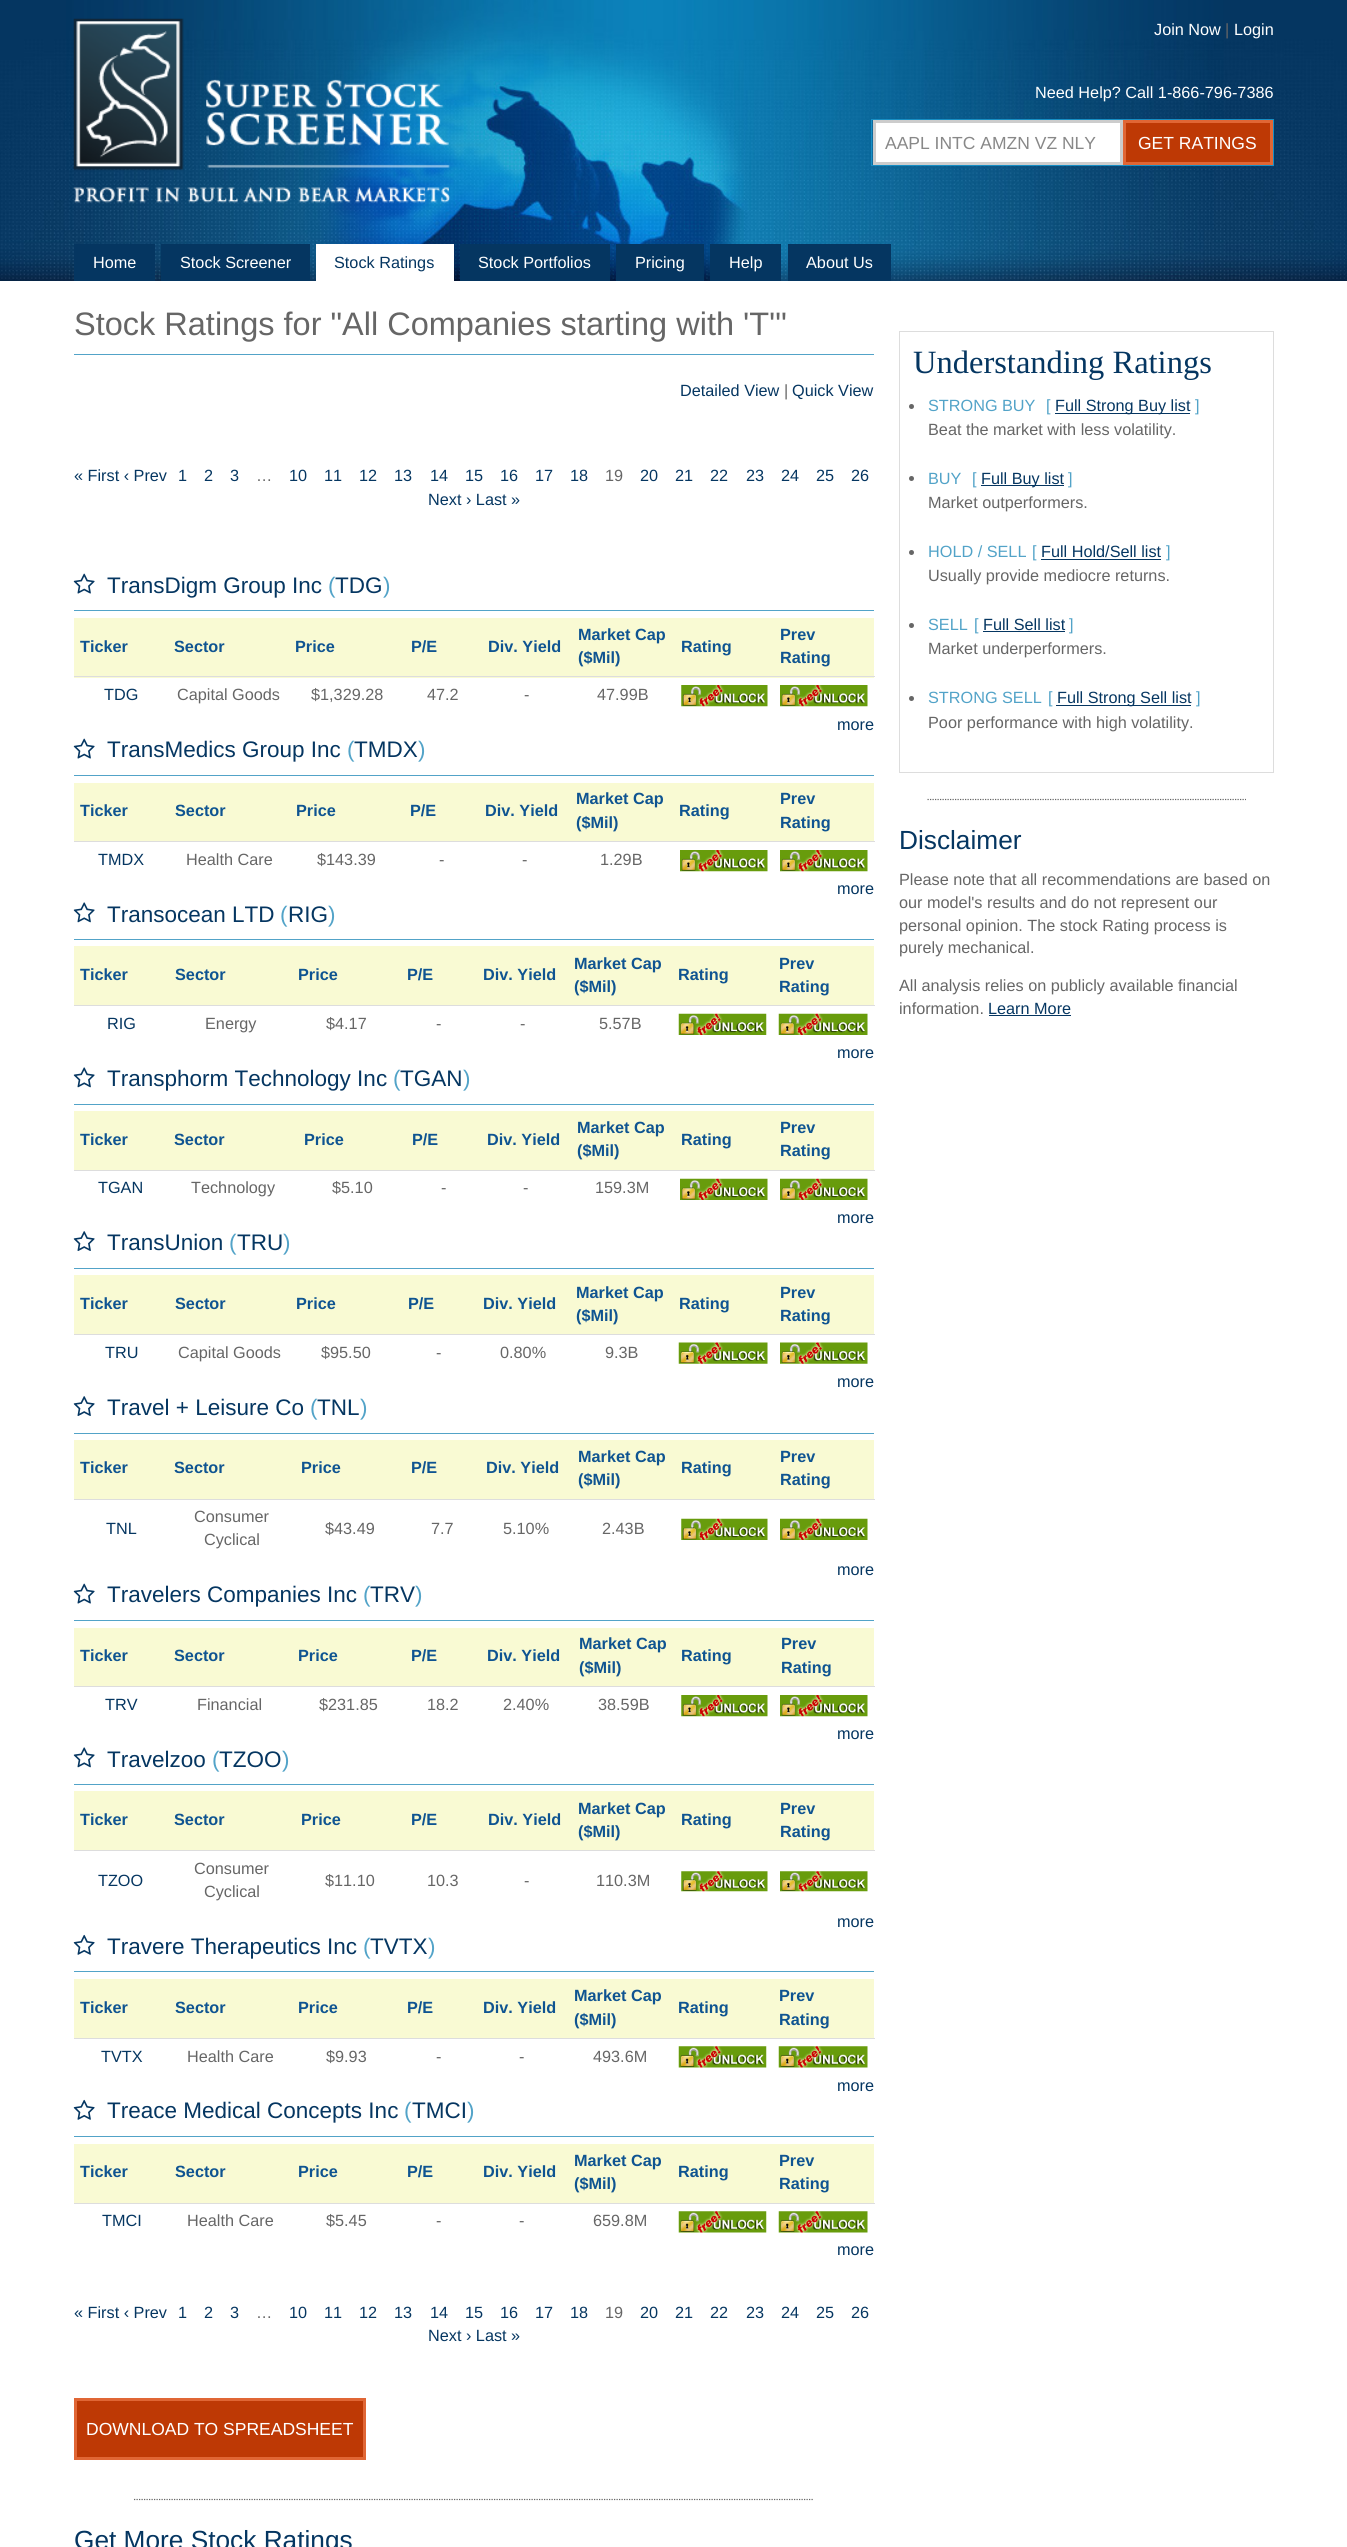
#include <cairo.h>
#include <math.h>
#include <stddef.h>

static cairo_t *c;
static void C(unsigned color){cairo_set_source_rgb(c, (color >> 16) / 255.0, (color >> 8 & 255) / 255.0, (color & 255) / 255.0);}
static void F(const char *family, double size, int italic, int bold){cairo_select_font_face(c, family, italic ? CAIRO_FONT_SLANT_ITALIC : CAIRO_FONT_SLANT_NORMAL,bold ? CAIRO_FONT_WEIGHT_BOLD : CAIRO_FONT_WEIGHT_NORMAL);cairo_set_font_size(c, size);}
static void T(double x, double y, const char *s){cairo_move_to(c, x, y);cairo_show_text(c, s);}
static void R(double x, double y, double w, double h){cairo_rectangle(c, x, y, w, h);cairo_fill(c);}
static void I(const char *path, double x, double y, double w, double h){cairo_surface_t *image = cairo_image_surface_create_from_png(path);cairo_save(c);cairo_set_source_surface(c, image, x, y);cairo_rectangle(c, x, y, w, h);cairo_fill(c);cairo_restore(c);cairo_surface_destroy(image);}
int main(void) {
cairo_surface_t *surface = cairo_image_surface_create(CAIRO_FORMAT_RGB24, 1347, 2547);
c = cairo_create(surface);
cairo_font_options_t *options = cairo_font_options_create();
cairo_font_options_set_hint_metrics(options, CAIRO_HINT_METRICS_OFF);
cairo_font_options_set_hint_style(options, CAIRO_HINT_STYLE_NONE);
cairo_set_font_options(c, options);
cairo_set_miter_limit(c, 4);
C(0xffffff);
cairo_paint(c);
I("1.png",0,0,1347,281);
I("2.png",73,18,378,185);
F("Liberation Sans",16.25,0,0);
C(0xffffff);
T(1154,35,"Join Now");
C(0x666666);
T(1225,35,"|");
C(0xffffff);
T(1234,35,"Login");
T(1035,98,"Need Help? Call 1-866-796-7386");
cairo_rectangle(c,871.5,119.5,402,46);
C(0x178ec4);
cairo_set_line_width(c,1);
cairo_stroke(c);
C(0xffffff);
cairo_rectangle(c,874.5,121.5,247,42);
cairo_fill_preserve(c);
C(0xcccccc);
cairo_set_line_width(c,3);
cairo_stroke(c);
F("Liberation Sans",17.5,0,0);
C(0x888888);
T(885,149,"AAPL INTC AMZN VZ NLY");
C(0xbe3905);
cairo_rectangle(c,1124.5,121.5,147,42);
cairo_fill_preserve(c);
C(0xe06635);
cairo_stroke(c);
C(0xffffff);
T(1138,149,"GET RATINGS");
C(0x053661);
R(74,244,81,37);
F("Liberation Sans",16.25,0,0);
C(0xffffff);
T(93,268,"Home");
C(0x053661);
R(161,244,149,37);
C(0xffffff);
T(180,268,"Stock Screener");
R(316,244,138,37);
C(0x053661);
T(334,268,"Stock Ratings");
R(460,244,150,37);
C(0xffffff);
T(478,268,"Stock Portfolios");
C(0x053661);
R(616,244,88,37);
C(0xffffff);
T(635,268,"Pricing");
C(0x053661);
R(710,244,71,37);
C(0xffffff);
T(729,268,"Help");
C(0x053661);
R(788,244,103,37);
C(0xffffff);
T(806,268,"About Us");
C(0x52a3c8);
R(74,354,800,1);
F("Liberation Sans",32.5,0,0);
C(0x666666);
T(74,335,"Stock Ratings for \"All Companies starting with 'T'\"");
F("Liberation Sans",16.25,0,0);
C(0x053661);
T(680,396,"Detailed View");
C(0x666666);
T(784,396,"|");
C(0x053661);
T(792,396,"Quick View");
T(74,481,"« First ‹ Prev");
T(178,481,"1");
T(204,481,"2");
T(230,481,"3");
C(0x666666);
T(256,481,"…");
C(0x053661);
T(289,481,"10");
T(324,481,"11");
T(359,481,"12");
T(394,481,"13");
T(430,481,"14");
T(465,481,"15");
T(500,481,"16");
T(535,481,"17");
T(570,481,"18");
C(0x666666);
T(605,481,"19");
C(0x053661);
T(640,481,"20");
T(675,481,"21");
T(710,481,"22");
T(746,481,"23");
T(781,481,"24");
T(816,481,"25");
T(851,481,"26");
T(428,505,"Next › Last »");
C(0x52a3c8);
R(74,610,800,1);
I("3.png",73,573,22,21);
F("Liberation Sans",22.5,0,0);
C(0x053661);
T(107,593,"TransDigm Group Inc");
C(0x52a3c8);
T(328,593,"(");
C(0x053661);
T(335,593,"TDG");
C(0x52a3c8);
T(383,593,")");
C(0xf9fad3);
R(74,618,800,60);
F("Liberation Sans",16.25,0,1);
C(0x0f5491);
T(80,652,"Ticker");
T(174,652,"Sector");
T(295,652,"Price");
T(411,652,"P/E");
T(488,652,"Div. Yield");
T(578,640,"Market Cap");
T(578,663,"($Mil)");
T(681,652,"Rating");
T(780,640,"Prev");
T(780,663,"Rating");
C(0xdddddd);
R(74,676,801,1);
I("4.png",780,685,88,22);
F("Liberation Sans",16.25,0,0);
C(0x053661);
T(104,700,"TDG");
C(0x666666);
T(177,700,"Capital Goods");
T(311,700,"$1,329.28");
T(427,700,"47.2");
T(524,700,"-");
T(597,700,"47.99B");
I("5.png",681,685,87,22);
C(0x053661);
T(837,730,"more");
C(0x52a3c8);
R(74,775,800,1);
I("3.png",73,738,22,21);
F("Liberation Sans",22.5,0,0);
C(0x053661);
T(107,757,"TransMedics Group Inc");
C(0x52a3c8);
T(347,757,"(");
C(0x053661);
T(354,757,"TMDX");
C(0x52a3c8);
T(418,757,")");
C(0xf9fad3);
R(74,783,800,58);
F("Liberation Sans",16.25,0,1);
C(0x0f5491);
T(80,816,"Ticker");
T(175,816,"Sector");
T(296,816,"Price");
T(410,816,"P/E");
T(485,816,"Div. Yield");
T(576,804,"Market Cap");
T(576,828,"($Mil)");
T(679,816,"Rating");
T(780,804,"Prev");
T(780,828,"Rating");
C(0xdddddd);
R(74,841,801,1);
I("4.png",780,850,88,22);
F("Liberation Sans",16.25,0,0);
C(0x053661);
T(98,865,"TMDX");
C(0x666666);
T(186,865,"Health Care");
T(317,865,"$143.39");
T(439,865,"-");
T(522,865,"-");
T(600,865,"1.29B");
I("4.png",680,850,88,22);
C(0x053661);
T(837,894,"more");
C(0x52a3c8);
R(74,939,800,1);
I("6.png",73,902,22,21);
F("Liberation Sans",22.5,0,0);
C(0x053661);
T(107,922,"Transocean LTD");
C(0x52a3c8);
T(280,922,"(");
C(0x053661);
T(288,922,"RIG");
C(0x52a3c8);
T(328,922,")");
C(0xf9fad3);
R(74,946,800,59);
F("Liberation Sans",16.25,0,1);
C(0x0f5491);
T(80,980,"Ticker");
T(175,980,"Sector");
T(298,980,"Price");
T(407,980,"P/E");
T(483,980,"Div. Yield");
T(574,969,"Market Cap");
T(574,992,"($Mil)");
T(678,980,"Rating");
T(779,969,"Prev");
T(779,992,"Rating");
C(0xdddddd);
R(74,1005,801,1);
I("7.png",778,1013,90,22);
F("Liberation Sans",16.25,0,0);
C(0x053661);
T(107,1029,"RIG");
C(0x666666);
T(205,1029,"Energy");
T(326,1029,"$4.17");
T(436,1029,"-");
T(520,1029,"-");
T(599,1029,"5.57B");
I("8.png",678,1013,89,22);
C(0x053661);
T(837,1058,"more");
C(0x52a3c8);
R(74,1104,800,1);
I("6.png",73,1067,22,21);
F("Liberation Sans",22.5,0,0);
C(0x053661);
T(107,1086,"Transphorm Technology Inc");
C(0x52a3c8);
T(393,1086,"(");
C(0x053661);
T(400,1086,"TGAN");
C(0x52a3c8);
T(463,1086,")");
C(0xf9fad3);
R(74,1111,800,59);
F("Liberation Sans",16.25,0,1);
C(0x0f5491);
T(80,1145,"Ticker");
T(174,1145,"Sector");
T(304,1145,"Price");
T(412,1145,"P/E");
T(487,1145,"Div. Yield");
T(577,1133,"Market Cap");
T(577,1156,"($Mil)");
T(681,1145,"Rating");
T(780,1133,"Prev");
T(780,1156,"Rating");
C(0xdddddd);
R(74,1170,801,1);
I("9.png",780,1178,88,22);
F("Liberation Sans",16.25,0,0);
C(0x053661);
T(98,1193,"TGAN");
C(0x666666);
T(191,1193,"Technology");
T(332,1193,"$5.10");
T(441,1193,"-");
T(523,1193,"-");
T(595,1193,"159.3M");
I("9.png",680,1178,88,22);
C(0x053661);
T(837,1223,"more");
C(0x52a3c8);
R(74,1268,800,1);
I("10.png",73,1231,22,20);
F("Liberation Sans",22.5,0,0);
C(0x053661);
T(107,1250,"TransUnion");
C(0x52a3c8);
T(229,1250,"(");
C(0x053661);
T(237,1250,"TRU");
C(0x52a3c8);
T(283,1250,")");
C(0xf9fad3);
R(74,1275,800,59);
F("Liberation Sans",16.25,0,1);
C(0x0f5491);
T(80,1309,"Ticker");
T(175,1309,"Sector");
T(296,1309,"Price");
T(408,1309,"P/E");
T(483,1309,"Div. Yield");
T(576,1298,"Market Cap");
T(576,1321,"($Mil)");
T(679,1309,"Rating");
T(780,1298,"Prev");
T(780,1321,"Rating");
C(0xdddddd);
R(74,1334,801,1);
I("11.png",780,1342,88,22);
F("Liberation Sans",16.25,0,0);
C(0x053661);
T(105,1358,"TRU");
C(0x666666);
T(178,1358,"Capital Goods");
T(321,1358,"$95.50");
T(436,1358,"-");
T(500,1358,"0.80%");
T(605,1358,"9.3B");
I("12.png",678,1342,90,22);
C(0x053661);
T(837,1387,"more");
C(0x52a3c8);
R(74,1433,800,1);
I("10.png",73,1396,22,20);
F("Liberation Sans",22.5,0,0);
C(0x053661);
T(107,1415,"Travel + Leisure Co");
C(0x52a3c8);
T(310,1415,"(");
C(0x053661);
T(317,1415,"TNL");
C(0x52a3c8);
T(360,1415,")");
C(0xf9fad3);
R(74,1440,800,59);
F("Liberation Sans",16.25,0,1);
C(0x0f5491);
T(80,1473,"Ticker");
T(174,1473,"Sector");
T(301,1473,"Price");
T(411,1473,"P/E");
T(486,1473,"Div. Yield");
T(578,1462,"Market Cap");
T(578,1485,"($Mil)");
T(681,1473,"Rating");
T(780,1462,"Prev");
T(780,1485,"Rating");
C(0xdddddd);
R(74,1499,801,1);
I("9.png",780,1518,88,22);
F("Liberation Sans",16.25,0,0);
C(0x053661);
T(106,1534,"TNL");
C(0x666666);
T(194,1522,"Consumer");
T(204,1545,"Cyclical");
T(325,1534,"$43.49");
T(431,1534,"7.7");
T(503,1534,"5.10%");
T(602,1534,"2.43B");
I("13.png",681,1518,87,22);
C(0x053661);
T(837,1575,"more");
C(0x52a3c8);
R(74,1620,800,1);
I("3.png",73,1583,22,21);
F("Liberation Sans",22.5,0,0);
C(0x053661);
T(107,1602,"Travelers Companies Inc");
C(0x52a3c8);
T(363,1602,"(");
C(0x053661);
T(370,1602,"TRV");
C(0x52a3c8);
T(415,1602,")");
C(0xf9fad3);
R(74,1628,800,58);
F("Liberation Sans",16.25,0,1);
C(0x0f5491);
T(80,1661,"Ticker");
T(174,1661,"Sector");
T(298,1661,"Price");
T(411,1661,"P/E");
T(487,1661,"Div. Yield");
T(579,1649,"Market Cap");
T(579,1673,"($Mil)");
T(681,1661,"Rating");
T(781,1649,"Prev");
T(781,1673,"Rating");
C(0xdddddd);
R(74,1686,801,1);
I("4.png",780,1695,88,22);
F("Liberation Sans",16.25,0,0);
C(0x053661);
T(105,1710,"TRV");
C(0x666666);
T(197,1710,"Financial");
T(319,1710,"$231.85");
T(427,1710,"18.2");
T(503,1710,"2.40%");
T(598,1710,"38.59B");
I("5.png",681,1695,87,22);
C(0x053661);
T(837,1739,"more");
C(0x52a3c8);
R(74,1784,800,1);
I("6.png",73,1747,22,21);
F("Liberation Sans",22.5,0,0);
C(0x053661);
T(107,1767,"Travelzoo");
C(0x52a3c8);
T(212,1767,"(");
C(0x053661);
T(219,1767,"TZOO");
C(0x52a3c8);
T(282,1767,")");
C(0xf9fad3);
R(74,1791,800,59);
F("Liberation Sans",16.25,0,1);
C(0x0f5491);
T(80,1825,"Ticker");
T(174,1825,"Sector");
T(301,1825,"Price");
T(411,1825,"P/E");
T(488,1825,"Div. Yield");
T(578,1814,"Market Cap");
T(578,1837,"($Mil)");
T(681,1825,"Rating");
T(780,1814,"Prev");
T(780,1837,"Rating");
C(0xdddddd);
R(74,1850,801,1);
I("14.png",780,1871,88,21);
F("Liberation Sans",16.25,0,0);
C(0x053661);
T(98,1886,"TZOO");
C(0x666666);
T(194,1874,"Consumer");
T(204,1897,"Cyclical");
T(325,1886,"$11.10");
T(427,1886,"10.3");
T(524,1886,"-");
T(596,1886,"110.3M");
I("15.png",681,1871,87,21);
C(0x053661);
T(837,1927,"more");
C(0x52a3c8);
R(74,1971,800,1);
I("16.png",73,1934,22,21);
F("Liberation Sans",22.5,0,0);
C(0x053661);
T(107,1954,"Travere Therapeutics Inc");
C(0x52a3c8);
T(363,1954,"(");
C(0x053661);
T(370,1954,"TVTX");
C(0x52a3c8);
T(428,1954,")");
C(0xf9fad3);
R(74,1979,800,59);
F("Liberation Sans",16.25,0,1);
C(0x0f5491);
T(80,2013,"Ticker");
T(175,2013,"Sector");
T(298,2013,"Price");
T(407,2013,"P/E");
T(483,2013,"Div. Yield");
T(574,2001,"Market Cap");
T(574,2025,"($Mil)");
T(678,2013,"Rating");
T(779,2001,"Prev");
T(779,2025,"Rating");
C(0xdddddd);
R(74,2038,801,1);
I("17.png",778,2046,90,22);
F("Liberation Sans",16.25,0,0);
C(0x053661);
T(101,2062,"TVTX");
C(0x666666);
T(187,2062,"Health Care");
T(326,2062,"$9.93");
T(436,2062,"-");
T(519,2062,"-");
T(593,2062,"493.6M");
I("18.png",678,2046,89,22);
C(0x053661);
T(837,2091,"more");
C(0x52a3c8);
R(74,2136,800,1);
I("16.png",73,2099,22,21);
F("Liberation Sans",22.5,0,0);
C(0x053661);
T(107,2118,"Treace Medical Concepts Inc");
C(0x52a3c8);
T(404,2118,"(");
C(0x053661);
T(412,2118,"TMCI");
C(0x52a3c8);
T(467,2118,")");
C(0xf9fad3);
R(74,2144,800,59);
F("Liberation Sans",16.25,0,1);
C(0x0f5491);
T(80,2177,"Ticker");
T(175,2177,"Sector");
T(298,2177,"Price");
T(407,2177,"P/E");
T(483,2177,"Div. Yield");
T(574,2166,"Market Cap");
T(574,2189,"($Mil)");
T(678,2177,"Rating");
T(779,2166,"Prev");
T(779,2189,"Rating");
C(0xdddddd);
R(74,2203,801,1);
I("17.png",778,2211,90,22);
F("Liberation Sans",16.25,0,0);
C(0x053661);
T(102,2226,"TMCI");
C(0x666666);
T(187,2226,"Health Care");
T(326,2226,"$5.45");
T(436,2226,"-");
T(519,2226,"-");
T(593,2226,"659.8M");
I("18.png",678,2211,89,22);
C(0x053661);
T(837,2255,"more");
T(74,2318,"« First ‹ Prev");
T(178,2318,"1");
T(204,2318,"2");
T(230,2318,"3");
C(0x666666);
T(256,2318,"…");
C(0x053661);
T(289,2318,"10");
T(324,2318,"11");
T(359,2318,"12");
T(394,2318,"13");
T(430,2318,"14");
T(465,2318,"15");
T(500,2318,"16");
T(535,2318,"17");
T(570,2318,"18");
C(0x666666);
T(605,2318,"19");
C(0x053661);
T(640,2318,"20");
T(675,2318,"21");
T(710,2318,"22");
T(746,2318,"23");
T(781,2318,"24");
T(816,2318,"25");
T(851,2318,"26");
T(428,2341,"Next › Last »");
C(0xbe3905);
cairo_rectangle(c,75.5,2399.5,289,59);
cairo_fill_preserve(c);
C(0xe06635);
cairo_stroke(c);
F("Liberation Sans",17.5,0,0);
C(0xffffff);
T(86,2435,"DOWNLOAD TO SPREADSHEET");
cairo_new_path(c);
cairo_move_to(c,134,2499.5);
cairo_line_to(c,814,2499.5);
C(0x666666);
cairo_set_line_width(c,1.2);
cairo_set_dash(c,(double[]){1.25,1.25},2,0);
cairo_stroke(c);
F("Liberation Sans",26.25,0,0);
C(0x053661);
T(74,2549,"Get More Stock Ratings");
cairo_rectangle(c,899.5,331.5,374,441);
C(0xdddddd);
cairo_set_line_width(c,1);
cairo_set_dash(c,NULL,0,0);
cairo_stroke(c);
F("Liberation Serif",32.5,0,0);
C(0x053661);
T(913,373,"Understanding Ratings");
C(0x666666);
cairo_new_path(c);
cairo_arc(c,911.5,406.5,2.5,0,2 * M_PI);
cairo_fill(c);
F("Liberation Sans",16.25,0,0);
C(0x52a3c8);
T(928,411,"STRONG BUY");
T(1046,411,"[");
C(0x053661);
R(1055,413,135,1);
T(1055,411,"Full Strong Buy list");
C(0x52a3c8);
T(1195,411,"]");
C(0x666666);
T(928,435,"Beat the market with less volatility.");
cairo_new_path(c);
cairo_arc(c,911.5,478.5,2.5,0,2 * M_PI);
cairo_fill(c);
C(0x52a3c8);
T(928,484,"BUY");
T(972,484,"[");
C(0x053661);
R(981,485,83,1);
T(981,484,"Full Buy list");
C(0x52a3c8);
T(1068,484,"]");
C(0x666666);
T(928,508,"Market outperformers.");
cairo_new_path(c);
cairo_arc(c,911.5,552.5,2.5,0,2 * M_PI);
cairo_fill(c);
C(0x52a3c8);
T(928,557,"HOLD / SELL");
T(1032,557,"[");
C(0x053661);
T(1041,557,"Full Hold/Sell list");
R(1041,559,120,1);
C(0x52a3c8);
T(1166,557,"]");
C(0x666666);
T(928,581,"Usually provide mediocre returns.");
cairo_new_path(c);
cairo_arc(c,911.5,625.5,2.5,0,2 * M_PI);
cairo_fill(c);
C(0x52a3c8);
T(928,630,"SELL");
T(974,630,"[");
C(0x053661);
T(983,630,"Full Sell list");
R(983,631,82,1);
C(0x52a3c8);
T(1069,630,"]");
C(0x666666);
T(928,654,"Market underperformers.");
cairo_new_path(c);
cairo_arc(c,911.5,698.5,2.5,0,2 * M_PI);
cairo_fill(c);
C(0x52a3c8);
T(928,703,"STRONG SELL");
T(1048,703,"[");
C(0x053661);
R(1056,705,135,1);
T(1057,703,"Full Strong Sell list");
C(0x52a3c8);
T(1196,703,"]");
C(0x666666);
T(928,728,"Poor performance with high volatility.");
cairo_new_path(c);
cairo_move_to(c,927.5,799.5);
cairo_line_to(c,1246,799.5);
cairo_set_line_width(c,1.2);
cairo_set_dash(c,(double[]){1.25,1.25},2,0);
cairo_stroke(c);
F("Liberation Sans",26.25,0,0);
C(0x053661);
T(899,849,"Disclaimer");
F("Liberation Sans",16.25,0,0);
C(0x666666);
T(899,885,"Please note that all recommendations are based on");
T(899,908,"our model's results and do not represent our");
T(899,931,"personal opinion. The stock Rating process is");
T(899,953,"purely mechanical.");
T(899,991,"All analysis relies on publicly available financial");
T(899,1014,"information.");
C(0x053661);
T(988,1014,"Learn More");
R(989,1015,82,1);
cairo_surface_write_to_png(surface, "o.png");
cairo_font_options_destroy(options);
cairo_destroy(c);
cairo_surface_destroy(surface);
return 0;
}
